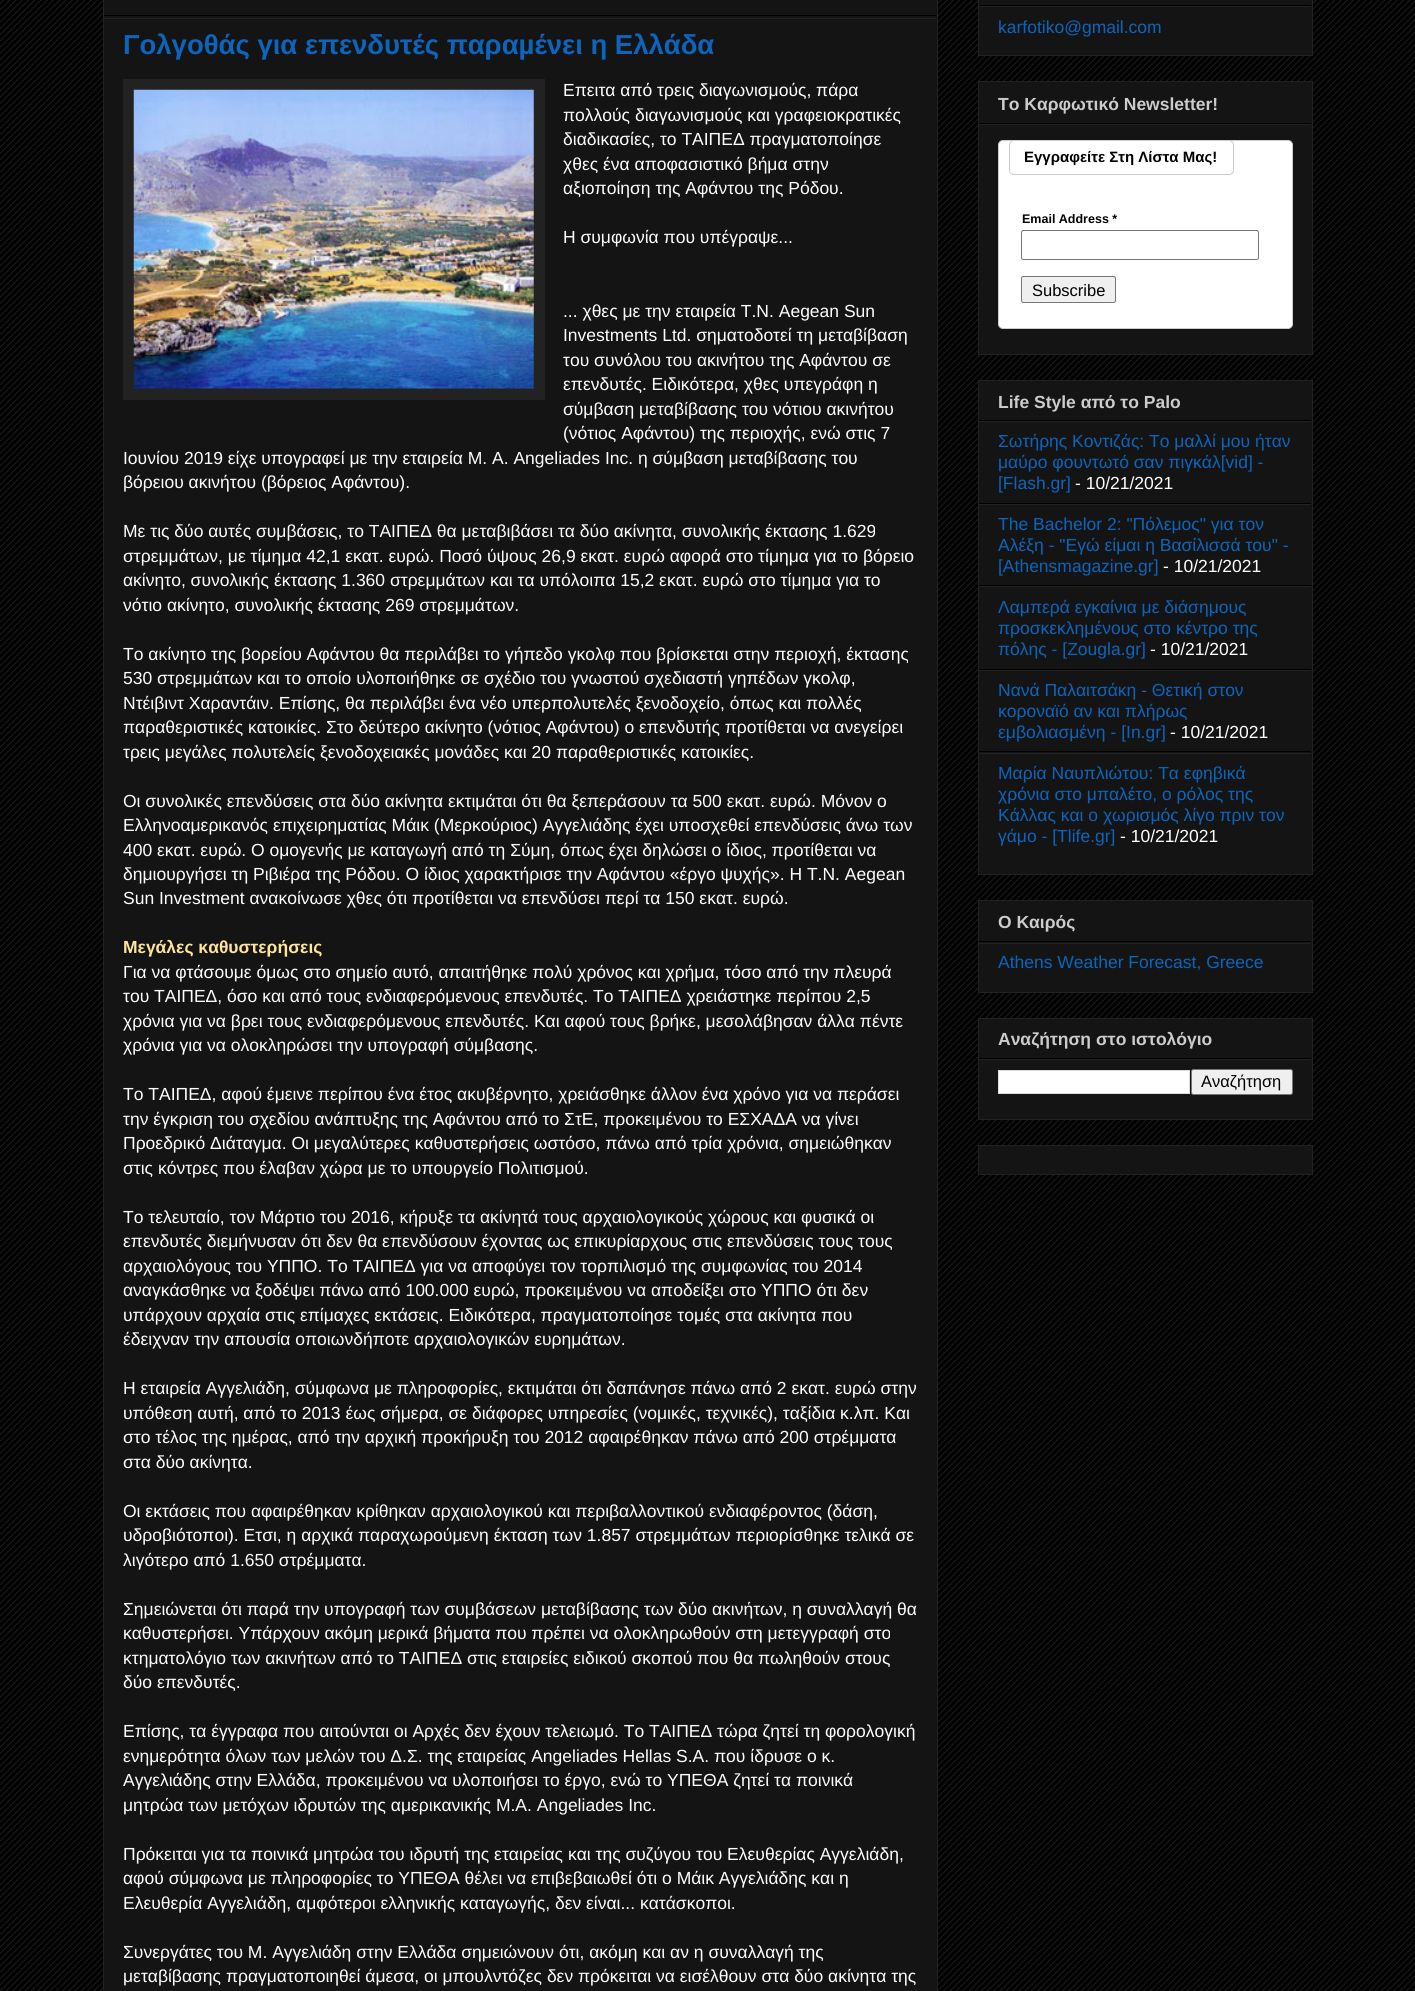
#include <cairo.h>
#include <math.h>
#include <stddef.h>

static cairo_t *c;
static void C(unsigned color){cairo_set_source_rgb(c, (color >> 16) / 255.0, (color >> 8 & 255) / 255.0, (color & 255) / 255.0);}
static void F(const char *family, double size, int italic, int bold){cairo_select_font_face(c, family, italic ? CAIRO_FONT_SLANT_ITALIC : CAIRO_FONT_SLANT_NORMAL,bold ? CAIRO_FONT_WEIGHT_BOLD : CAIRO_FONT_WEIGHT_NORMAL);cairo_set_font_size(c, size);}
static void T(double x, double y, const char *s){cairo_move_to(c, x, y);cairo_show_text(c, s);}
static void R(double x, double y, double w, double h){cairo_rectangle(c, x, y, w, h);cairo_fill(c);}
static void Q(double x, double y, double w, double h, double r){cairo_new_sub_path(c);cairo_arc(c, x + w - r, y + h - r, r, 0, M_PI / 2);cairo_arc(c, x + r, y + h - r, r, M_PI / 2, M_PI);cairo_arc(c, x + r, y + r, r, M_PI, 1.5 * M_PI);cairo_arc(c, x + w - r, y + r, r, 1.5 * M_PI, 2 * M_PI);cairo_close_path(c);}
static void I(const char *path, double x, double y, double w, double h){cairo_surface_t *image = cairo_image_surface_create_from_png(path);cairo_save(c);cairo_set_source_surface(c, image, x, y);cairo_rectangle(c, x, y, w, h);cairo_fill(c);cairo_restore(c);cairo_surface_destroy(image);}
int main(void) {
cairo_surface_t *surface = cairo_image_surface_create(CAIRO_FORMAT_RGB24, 1415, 1991);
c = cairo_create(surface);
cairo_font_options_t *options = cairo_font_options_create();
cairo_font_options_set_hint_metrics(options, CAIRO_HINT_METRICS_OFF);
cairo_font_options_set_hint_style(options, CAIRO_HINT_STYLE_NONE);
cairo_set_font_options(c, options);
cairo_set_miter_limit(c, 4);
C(0x000000);
cairo_paint(c);
I("1.png",0,0,1415,1991);
C(0x141414);
cairo_rectangle(c,103.5,-.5,834,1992);
cairo_fill_preserve(c);
C(0x222222);
cairo_set_line_width(c,1);
cairo_stroke(c);
C(0x000000);
R(104,15,832,1);
C(0x222222);
R(104,18,832,1);
F("Liberation Sans",27.5,0,1);
C(0x0c65bd);
T(123,54,"Γολγοθάς για επενδυτές παραµένει η Ελλάδα");
C(0x222222);
R(123,79,422,321);
I("2.png",133,89,401,300);
F("Liberation Sans",17.5,0,0);
C(0xffffff);
T(563,96,"Επειτα από τρεις διαγωνισμούς, πάρα");
T(563,121,"πολλούς διαγωνισμούς και γραφειοκρατικές");
T(563,145,"διαδικασίες, το ΤΑΙΠΕΔ πραγματοποίησε");
T(563,170,"χθες ένα αποφασιστικό βήμα στην");
T(563,194,"αξιοποίηση της Αφάντου της Ρόδου.");
T(563,243,"Η συμφωνία που υπέγραψε...");
T(563,317,"... χθες με την εταιρεία T.N. Aegean Sun");
T(563,341,"Investments Ltd. σηματοδοτεί τη μεταβίβαση");
T(563,366,"του συνόλου του ακινήτου της Αφάντου σε");
T(563,390,"επενδυτές. Ειδικότερα, χθες υπεγράφη η");
T(563,415,"σύμβαση μεταβίβασης του νότιου ακινήτου");
T(563,439,"(νότιος Αφάντου) της περιοχής, ενώ στις 7");
T(123,464,"Ιουνίου 2019 είχε υπογραφεί με την εταιρεία Μ. Α. Αngeliades Inc. η σύμβαση μεταβίβασης του");
T(123,488,"βόρειου ακινήτου (βόρειος Αφάντου).");
T(123,537,"Με τις δύο αυτές συμβάσεις, το ΤΑΙΠΕΔ θα μεταβιβάσει τα δύο ακίνητα, συνολικής έκτασης 1.629");
T(123,562,"στρεμμάτων, με τίμημα 42,1 εκατ. ευρώ. Ποσό ύψους 26,9 εκατ. ευρώ αφορά στο τίμημα για το βόρειο");
T(123,586,"ακίνητο, συνολικής έκτασης 1.360 στρεμμάτων και τα υπόλοιπα 15,2 εκατ. ευρώ στο τίμημα για το");
T(123,611,"νότιο ακίνητο, συνολικής έκτασης 269 στρεμμάτων.");
T(123,660,"Το ακίνητο της βορείου Αφάντου θα περιλάβει το γήπεδο γκολφ που βρίσκεται στην περιοχή, έκτασης");
T(123,684,"530 στρεμμάτων και το οποίο υλοποιήθηκε σε σχέδιο του γνωστού σχεδιαστή γηπέδων γκολφ,");
T(123,709,"Ντέιβιντ Χαραντάιν. Επίσης, θα περιλάβει ένα νέο υπερπολυτελές ξενοδοχείο, όπως και πολλές");
T(123,733,"παραθεριστικές κατοικίες. Στο δεύτερο ακίνητο (νότιος Αφάντου) ο επενδυτής προτίθεται να ανεγείρει");
T(123,758,"τρεις μεγάλες πολυτελείς ξενοδοχειακές μονάδες και 20 παραθεριστικές κατοικίες.");
T(123,807,"Οι συνολικές επενδύσεις στα δύο ακίνητα εκτιμάται ότι θα ξεπεράσουν τα 500 εκατ. ευρώ. Μόνον ο");
T(123,831,"Ελληνοαμερικανός επιχειρηματίας Μάικ (Μερκούριος) Αγγελιάδης έχει υποσχεθεί επενδύσεις άνω των");
T(123,856,"400 εκατ. ευρώ. Ο ομογενής με καταγωγή από τη Σύμη, όπως έχει δηλώσει ο ίδιος, προτίθεται να");
T(123,880,"δημιουργήσει τη Ριβιέρα της Ρόδου. Ο ίδιος χαρακτήρισε την Αφάντου «έργο ψυχής». Η T.N. Aegean");
T(123,904,"Sun Investment ανακοίνωσε χθες ότι προτίθεται να επενδύσει περί τα 150 εκατ. ευρώ.");
F("Liberation Sans",17.5,0,1);
C(0xffe599);
T(123,953,"Μεγάλες καθυστερήσεις");
F("Liberation Sans",17.5,0,0);
C(0xffffff);
T(123,978,"Για να φτάσουμε όμως στο σημείο αυτό, απαιτήθηκε πολύ χρόνος και χρήμα, τόσο από την πλευρά");
T(123,1002,"του ΤΑΙΠΕΔ, όσο και από τους ενδιαφερόμενους επενδυτές. Το ΤΑΙΠΕΔ χρειάστηκε περίπου 2,5");
T(123,1027,"χρόνια για να βρει τους ενδιαφερόμενους επενδυτές. Και αφού τους βρήκε, μεσολάβησαν άλλα πέντε");
T(123,1051,"χρόνια για να ολοκληρώσει την υπογραφή σύμβασης.");
T(123,1100,"Το ΤΑΙΠΕΔ, αφού έμεινε περίπου ένα έτος ακυβέρνητο, χρειάσθηκε άλλον ένα χρόνο για να περάσει");
T(123,1125,"την έγκριση του σχεδίου ανάπτυξης της Αφάντου από το ΣτΕ, προκειμένου το ΕΣΧΑΔΑ να γίνει");
T(123,1149,"Προεδρικό Διάταγμα. Οι μεγαλύτερες καθυστερήσεις ωστόσο, πάνω από τρία χρόνια, σημειώθηκαν");
T(123,1174,"στις κόντρες που έλαβαν χώρα με το υπουργείο Πολιτισμού.");
T(123,1223,"Το τελευταίο, τον Μάρτιο του 2016, κήρυξε τα ακίνητά τους αρχαιολογικούς χώρους και φυσικά οι");
T(123,1247,"επενδυτές διεμήνυσαν ότι δεν θα επενδύσουν έχοντας ως επικυρίαρχους στις επενδύσεις τους τους");
T(123,1272,"αρχαιολόγους του ΥΠΠΟ. Το ΤΑΙΠΕΔ για να αποφύγει τον τορπιλισμό της συμφωνίας του 2014");
T(123,1296,"αναγκάσθηκε να ξοδέψει πάνω από 100.000 ευρώ, προκειμένου να αποδείξει στο ΥΠΠΟ ότι δεν");
T(123,1321,"υπάρχουν αρχαία στις επίμαχες εκτάσεις. Ειδικότερα, πραγματοποίησε τομές στα ακίνητα που");
T(123,1345,"έδειχναν την απουσία οποιωνδήποτε αρχαιολογικών ευρημάτων.");
T(123,1394,"Η εταιρεία Αγγελιάδη, σύμφωνα με πληροφορίες, εκτιμάται ότι δαπάνησε πάνω από 2 εκατ. ευρώ στην");
T(123,1419,"υπόθεση αυτή, από το 2013 έως σήμερα, σε διάφορες υπηρεσίες (νομικές, τεχνικές), ταξίδια κ.λπ. Και");
T(123,1443,"στο τέλος της ημέρας, από την αρχική προκήρυξη του 2012 αφαιρέθηκαν πάνω από 200 στρέμματα");
T(123,1468,"στα δύο ακίνητα.");
T(123,1517,"Οι εκτάσεις που αφαιρέθηκαν κρίθηκαν αρχαιολογικού και περιβαλλοντικού ενδιαφέροντος (δάση,");
T(123,1541,"υδροβιότοποι). Ετσι, η αρχικά παραχωρούμενη έκταση των 1.857 στρεμμάτων περιορίσθηκε τελικά σε");
T(123,1566,"λιγότερο από 1.650 στρέμματα.");
T(123,1615,"Σημειώνεται ότι παρά την υπογραφή των συμβάσεων μεταβίβασης των δύο ακινήτων, η συναλλαγή θα");
T(123,1639,"καθυστερήσει. Υπάρχουν ακόμη μερικά βήματα που πρέπει να ολοκληρωθούν στη μετεγγραφή στο");
T(123,1664,"κτηματολόγιο των ακινήτων από το ΤΑΙΠΕΔ στις εταιρείες ειδικού σκοπού που θα πωληθούν στους");
T(123,1688,"δύο επενδυτές.");
T(123,1737,"Επίσης, τα έγγραφα που αιτούνται οι Αρχές δεν έχουν τελειωμό. Το ΤΑΙΠΕΔ τώρα ζητεί τη φορολογική");
T(123,1762,"ενημερότητα όλων των μελών του Δ.Σ. της εταιρείας Angeliades Hellas S.A. που ίδρυσε ο κ.");
T(123,1786,"Αγγελιάδης στην Ελλάδα, προκειμένου να υλοποιήσει το έργο, ενώ το ΥΠΕΘΑ ζητεί τα ποινικά");
T(123,1811,"μητρώα των μετόχων ιδρυτών της αμερικανικής M.A. Angeliades Ιnc.");
T(123,1860,"Πρόκειται για τα ποινικά μητρώα του ιδρυτή της εταιρείας και της συζύγου του Ελευθερίας Αγγελιάδη,");
T(123,1884,"αφού σύμφωνα με πληροφορίες το ΥΠΕΘΑ θέλει να επιβεβαιωθεί ότι ο Μάικ Αγγελιάδης και η");
T(123,1909,"Ελευθερία Αγγελιάδη, αμφότεροι ελληνικής καταγωγής, δεν είναι... κατάσκοποι.");
T(123,1958,"Συνεργάτες του Μ. Αγγελιάδη στην Ελλάδα σημειώνουν ότι, ακόμη και αν η συναλλαγή της");
T(123,1982,"μεταβίβασης πραγματοποιηθεί άμεσα, οι μπουλντόζες δεν πρόκειται να εισέλθουν στα δύο ακίνητα της");
C(0x141414);
cairo_rectangle(c,978.5,-.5,334,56);
cairo_fill_preserve(c);
C(0x222222);
cairo_stroke(c);
C(0x000000);
R(979,5,332,1);
C(0x222222);
R(979,6,332,1);
C(0x0c65bd);
T(998,33,"karfotiko@gmail.com");
C(0x141414);
cairo_rectangle(c,978.5,81.5,334,273);
cairo_fill_preserve(c);
C(0x222222);
cairo_stroke(c);
C(0x000000);
R(979,123,332,1);
F("Liberation Sans",17.5,0,1);
C(0xcccccc);
T(998,110,"Το Καρφωτικό Newsletter!");
C(0x222222);
R(979,124,332,1);
C(0xffffff);
Q(998.5,140.5,294,188,4.5);
cairo_fill_preserve(c);
C(0xcccccc);
cairo_stroke(c);
C(0xffffff);
Q(1009.5,140.5,224,34,4.5);
cairo_fill_preserve(c);
C(0xcccccc);
cairo_stroke(c);
F("Liberation Sans",15,0,1);
C(0x000000);
T(1024,162,"Εγγραφείτε Στη Λίστα Μας!");
F("Liberation Sans",12.5,0,1);
T(1022,223,"Email Address *");
Q(1021.5,230.5,237,29,2);
C(0x767676);
cairo_stroke(c);
C(0xefefef);
Q(1021.5,276.5,94,26,2);
cairo_fill_preserve(c);
C(0x767676);
cairo_stroke(c);
F("Liberation Sans",16.5,0,0);
C(0x000000);
T(1032,296,"Subscribe");
C(0x141414);
cairo_rectangle(c,978.5,380.5,334,494);
cairo_fill_preserve(c);
C(0x222222);
cairo_stroke(c);
C(0x000000);
R(979,420,332,1);
F("Liberation Sans",17.5,0,1);
C(0xcccccc);
T(998,408,"Life Style από το Palo");
C(0x222222);
R(979,421,332,1);
C(0x000000);
R(979,503,332,1);
F("Liberation Sans",17.5,0,0);
C(0x0c65bd);
T(998,447,"Σωτήρης Κοντιζάς: Το μαλλί μου ήταν");
T(998,468,"μαύρο φουντωτό σαν πιγκάλ[vid] -");
T(998,489,"[Flash.gr]");
C(0xffffff);
T(1075,489,"- 10/21/2021");
C(0x222222);
R(979,504,332,1);
C(0x000000);
R(979,585,332,1);
C(0x0c65bd);
T(998,530,"The Bachelor 2: \"Πόλεμος\" για τον");
T(998,551,"Αλέξη - \"Εγώ είμαι η Βασίλισσά του\" -");
T(998,572,"[Athensmagazine.gr]");
C(0xffffff);
T(1163,572,"- 10/21/2021");
C(0x222222);
R(979,586,332,1);
C(0x000000);
R(979,669,332,1);
C(0x0c65bd);
T(998,613,"Λαμπερά εγκαίνια με διάσημους");
T(998,634,"προσκεκλημένους στο κέντρο της");
T(998,655,"πόλης - [Zougla.gr]");
C(0xffffff);
T(1150,655,"- 10/21/2021");
C(0x222222);
R(979,670,332,1);
C(0x000000);
R(979,751,332,1);
C(0x0c65bd);
T(998,696,"Νανά Παλαιτσάκη - Θετική στον");
T(998,717,"κοροναϊό αν και πλήρως");
T(998,738,"εμβολιασμένη - [In.gr]");
C(0xffffff);
T(1170,738,"- 10/21/2021");
C(0x222222);
R(979,753,332,1);
C(0x0c65bd);
T(998,779,"Μαρία Ναυπλιώτου: Τα εφηβικά");
T(998,800,"χρόνια στο μπαλέτο, ο ρόλος της");
T(998,821,"Κάλλας και ο χωρισμός λίγο πριν τον");
T(998,842,"γάμο - [Tlife.gr]");
C(0xffffff);
T(1120,842,"- 10/21/2021");
C(0x141414);
cairo_rectangle(c,978.5,900.5,334,92);
cairo_fill_preserve(c);
C(0x222222);
cairo_stroke(c);
C(0x000000);
R(979,941,332,1);
F("Liberation Sans",17.5,0,1);
C(0xcccccc);
T(998,928,"Ο Καιρός");
C(0x222222);
R(979,943,332,1);
F("Liberation Sans",17.5,0,0);
C(0x0c65bd);
T(998,968,"Athens Weather Forecast, Greece");
C(0x141414);
cairo_rectangle(c,978.5,1018.5,334,101);
cairo_fill_preserve(c);
C(0x222222);
cairo_stroke(c);
C(0x000000);
R(979,1058,332,1);
F("Liberation Sans",17.5,0,1);
C(0xcccccc);
T(998,1045,"Αναζήτηση στο ιστολόγιο");
C(0x222222);
R(979,1059,332,1);
C(0xffffff);
cairo_rectangle(c,998.5,1070.5,191,23);
cairo_fill_preserve(c);
C(0xdddddd);
cairo_stroke(c);
C(0xefefef);
Q(1191.5,1069.5,101,25,2);
cairo_fill_preserve(c);
C(0x767676);
cairo_stroke(c);
F("Liberation Sans",16.5,0,0);
C(0x000000);
T(1201,1087,"Αναζήτηση");
C(0x141414);
cairo_rectangle(c,978.5,1145.5,334,29);
cairo_fill_preserve(c);
C(0x222222);
cairo_stroke(c);
cairo_surface_write_to_png(surface, "o.png");
cairo_font_options_destroy(options);
cairo_destroy(c);
cairo_surface_destroy(surface);
return 0;
}
